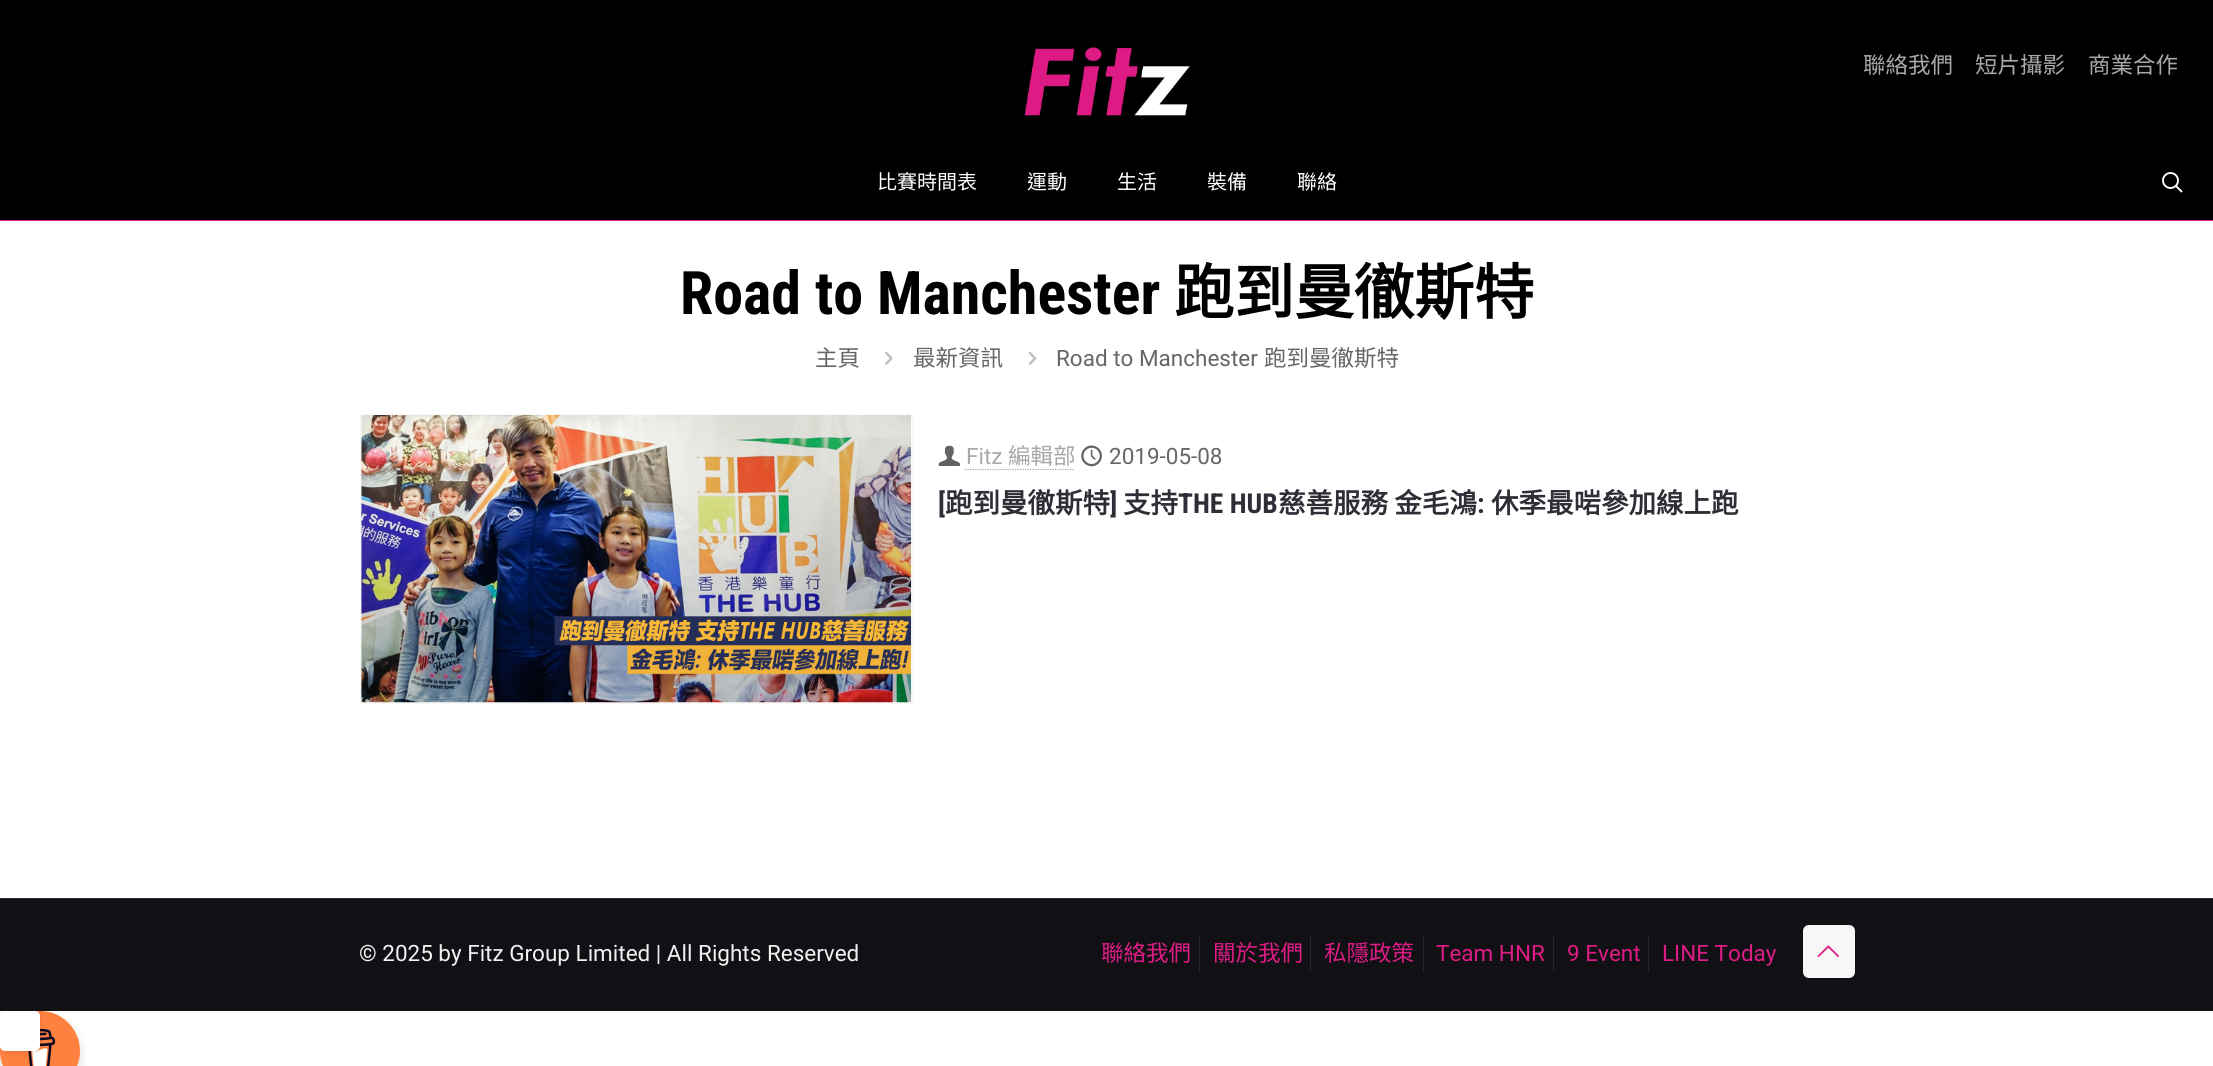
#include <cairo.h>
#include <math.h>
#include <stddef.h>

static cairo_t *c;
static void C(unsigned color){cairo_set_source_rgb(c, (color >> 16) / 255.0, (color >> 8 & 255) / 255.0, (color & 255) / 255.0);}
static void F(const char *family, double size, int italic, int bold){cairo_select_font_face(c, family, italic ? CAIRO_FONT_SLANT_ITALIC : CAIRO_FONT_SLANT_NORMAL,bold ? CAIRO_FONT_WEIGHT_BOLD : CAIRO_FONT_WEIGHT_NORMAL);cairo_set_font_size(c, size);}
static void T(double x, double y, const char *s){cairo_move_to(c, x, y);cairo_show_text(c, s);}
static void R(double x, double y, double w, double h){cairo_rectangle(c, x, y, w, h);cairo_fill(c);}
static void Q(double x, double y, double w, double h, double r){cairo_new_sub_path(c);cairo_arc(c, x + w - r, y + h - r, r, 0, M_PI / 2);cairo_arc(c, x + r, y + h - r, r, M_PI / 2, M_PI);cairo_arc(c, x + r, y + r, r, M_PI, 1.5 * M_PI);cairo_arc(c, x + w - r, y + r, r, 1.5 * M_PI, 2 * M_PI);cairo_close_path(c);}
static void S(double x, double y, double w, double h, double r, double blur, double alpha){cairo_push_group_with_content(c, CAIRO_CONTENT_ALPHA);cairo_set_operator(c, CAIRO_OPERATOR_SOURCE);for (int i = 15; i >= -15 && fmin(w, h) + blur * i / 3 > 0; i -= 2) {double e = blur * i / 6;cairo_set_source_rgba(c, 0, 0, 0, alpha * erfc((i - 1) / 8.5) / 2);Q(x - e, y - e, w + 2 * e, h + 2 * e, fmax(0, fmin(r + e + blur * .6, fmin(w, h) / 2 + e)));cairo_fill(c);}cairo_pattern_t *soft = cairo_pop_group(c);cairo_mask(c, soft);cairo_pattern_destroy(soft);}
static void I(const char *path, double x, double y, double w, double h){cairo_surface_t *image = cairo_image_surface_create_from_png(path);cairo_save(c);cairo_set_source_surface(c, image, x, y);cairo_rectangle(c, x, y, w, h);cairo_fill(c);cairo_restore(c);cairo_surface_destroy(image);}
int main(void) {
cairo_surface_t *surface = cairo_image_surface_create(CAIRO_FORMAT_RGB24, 2213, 1066);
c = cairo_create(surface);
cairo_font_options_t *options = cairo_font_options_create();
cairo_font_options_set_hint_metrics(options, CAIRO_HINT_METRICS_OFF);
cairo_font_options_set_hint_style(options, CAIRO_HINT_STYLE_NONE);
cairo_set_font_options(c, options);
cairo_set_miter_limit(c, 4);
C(0xffffff);
cairo_paint(c);
C(0x000000);
R(0,0,2213,220);
C(0xde1c85);
R(0,220,2213,1);
I("1.png",1024,47,166,69);
F("Noto Sans CJK HK",22.5,0,0);
C(0xa8a8a8);
T(1863,73,"聯絡我們");
T(1975,73,"短片攝影");
T(2088,73,"商業合作");
F("Noto Sans CJK HK",20,0,0);
C(0xffffff);
T(877,189,"比賽時間表");
T(1027,189,"運動");
T(1117,189,"生活");
T(1207,189,"裝備");
T(1297,189,"聯絡");
cairo_new_path(c);
cairo_arc(c,2170.5,180.5,7.5,0,2 * M_PI);
cairo_set_line_width(c,1.9);
cairo_stroke(c);
cairo_new_path(c);
cairo_move_to(c,2175.5,185.5);
cairo_line_to(c,2182,192);
cairo_stroke(c);
F("Roboto Condensed",60,0,1);
C(0x000000);
T(680,314,"Road to Manchester");
F("Noto Sans CJK HK",60,0,1);
T(1174,314,"跑到曼徹斯特");
F("Noto Sans CJK HK",22.5,0,0);
C(0x666666);
T(815,366,"主頁");
I("2.png",885,351,8,14);
T(913,366,"最新資訊");
I("3.png",1028,351,9,14);
F("Roboto",22.5,0,0);
T(1056,366,"Road to Manchester");
F("Noto Sans CJK HK",22.5,0,0);
T(1264,366,"跑到曼徹斯特");
cairo_rectangle(c,360.5,414.5,552,289);
C(0xf8f8f8);
cairo_set_line_width(c,1);
cairo_stroke(c);
I("4.png",361,415,551,288);
I("5.png",938,445,22,21);
F("Roboto",22.5,0,0);
C(0xa8a8a8);
T(966,464,"Fitz");
cairo_new_path(c);
cairo_move_to(c,965,469.5);
cairo_line_to(c,1075,469.5);
cairo_set_line_width(c,1.2);
cairo_set_dash(c,(double[]){1.25,1.25},2,0);
cairo_stroke(c);
F("Noto Sans CJK HK",22.5,0,0);
T(1008,464,"編輯部");
I("6.png",1081,445,21,22);
F("Roboto",22.5,0,0);
C(0x666666);
T(1109,464,"2019-05-08");
F("Roboto Condensed",27.5,0,1);
C(0x2d2e36);
T(938,513,"[");
F("Noto Sans CJK HK",27.5,0,1);
T(945,513,"跑到曼徹斯特");
F("Roboto Condensed",27.5,0,1);
T(1110,513,"]");
F("Noto Sans CJK HK",27.5,0,1);
T(1123,513,"支持");
F("Roboto Condensed",27.5,0,1);
T(1178,513,"THE HUB");
F("Noto Sans CJK HK",27.5,0,1);
T(1278,513,"慈善服務 金毛鴻");
F("Roboto Condensed",27.5,0,1);
T(1477,513,":");
F("Noto Sans CJK HK",27.5,0,1);
T(1491,513,"休季最啱參加線上跑");
C(0x101015);
R(0,899,2213,112);
C(0x28282c);
R(0,898,2213,1);
F("Roboto",22.5,0,0);
C(0xf2f2f2);
T(359,961,"© 2025 by Fitz Group Limited | All Rights Reserved");
C(0x28282c);
R(1199,936,1,35);
F("Noto Sans CJK HK",22.5,0,0);
C(0xde1c85);
T(1101,961,"聯絡我們");
C(0x28282c);
R(1310,936,1,35);
C(0xde1c85);
T(1213,961,"關於我們");
C(0x28282c);
R(1423,936,1,35);
C(0xde1c85);
T(1324,961,"私隱政策");
C(0x28282c);
R(1553,936,1,35);
F("Roboto",22.5,0,0);
C(0xde1c85);
T(1436,961,"Team HNR");
C(0x28282c);
R(1648,936,1,35);
C(0xde1c85);
T(1567,961,"9 Event");
T(1662,961,"LINE Today");
C(0xf7f7f7);
Q(1803,925,52,53,6);
cairo_fill(c);
I("7.png",1817,945,22,12);
C(0x000000);
S(0,1016,80,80,40,5,.15);
C(0xff813f);
cairo_arc(c,40,1051,40,0,2 * M_PI);
cairo_fill(c);
I("8.png",28,1029,28,37);
C(0x000000);
S(0,1011,40,40,5,1,.15);
S(0,1014,40,40,5,3,.05);
C(0xffffff);
Q(0,1011,40,40,5);
cairo_fill(c);
cairo_surface_write_to_png(surface, "o.png");
cairo_font_options_destroy(options);
cairo_destroy(c);
cairo_surface_destroy(surface);
return 0;
}
